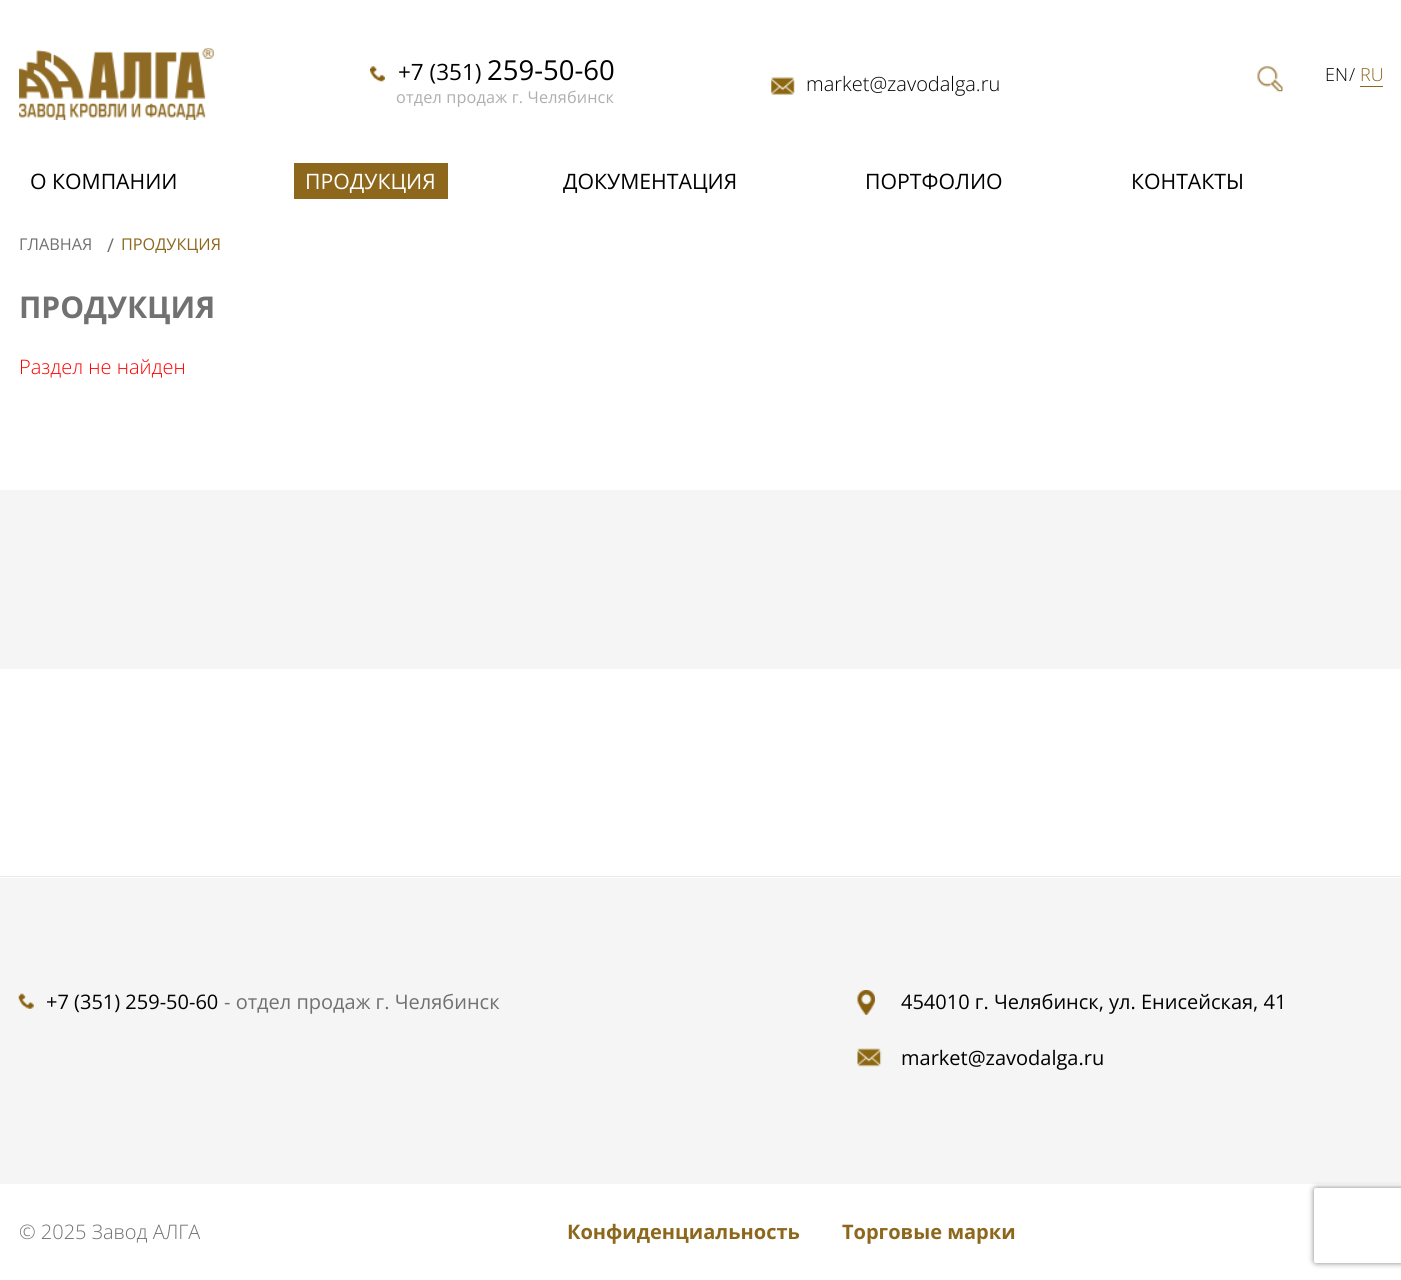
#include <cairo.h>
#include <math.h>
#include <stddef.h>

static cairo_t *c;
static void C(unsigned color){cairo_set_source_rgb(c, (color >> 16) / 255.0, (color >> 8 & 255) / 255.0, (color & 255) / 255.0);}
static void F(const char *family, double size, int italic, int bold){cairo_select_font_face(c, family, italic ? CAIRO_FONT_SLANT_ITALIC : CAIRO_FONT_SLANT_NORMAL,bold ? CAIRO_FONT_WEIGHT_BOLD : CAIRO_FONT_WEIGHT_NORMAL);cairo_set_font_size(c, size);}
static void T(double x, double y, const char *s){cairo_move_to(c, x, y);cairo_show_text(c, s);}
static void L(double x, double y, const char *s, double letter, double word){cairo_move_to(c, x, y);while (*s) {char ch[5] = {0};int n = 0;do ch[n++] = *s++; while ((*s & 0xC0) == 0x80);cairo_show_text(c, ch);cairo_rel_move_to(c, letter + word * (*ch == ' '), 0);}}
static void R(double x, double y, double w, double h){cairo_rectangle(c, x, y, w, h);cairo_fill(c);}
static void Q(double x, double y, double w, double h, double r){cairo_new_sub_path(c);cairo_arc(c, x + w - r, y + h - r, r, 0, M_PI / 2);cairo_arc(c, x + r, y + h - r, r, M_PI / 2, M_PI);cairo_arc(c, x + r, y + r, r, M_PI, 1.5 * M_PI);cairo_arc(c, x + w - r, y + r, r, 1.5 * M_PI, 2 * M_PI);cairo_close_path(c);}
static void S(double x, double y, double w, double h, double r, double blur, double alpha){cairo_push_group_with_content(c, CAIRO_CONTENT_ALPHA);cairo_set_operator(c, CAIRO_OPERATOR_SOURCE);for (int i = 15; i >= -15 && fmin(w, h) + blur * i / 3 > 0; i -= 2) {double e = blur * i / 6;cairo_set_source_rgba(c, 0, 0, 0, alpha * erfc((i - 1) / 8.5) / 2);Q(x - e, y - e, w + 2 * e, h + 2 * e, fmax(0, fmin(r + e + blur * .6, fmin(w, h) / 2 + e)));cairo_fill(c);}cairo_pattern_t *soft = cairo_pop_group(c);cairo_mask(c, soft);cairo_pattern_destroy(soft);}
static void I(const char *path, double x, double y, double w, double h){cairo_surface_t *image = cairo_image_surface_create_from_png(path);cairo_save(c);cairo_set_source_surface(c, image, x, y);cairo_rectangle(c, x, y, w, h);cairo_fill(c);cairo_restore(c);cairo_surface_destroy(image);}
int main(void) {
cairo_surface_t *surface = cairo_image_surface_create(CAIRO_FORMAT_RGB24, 1401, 1280);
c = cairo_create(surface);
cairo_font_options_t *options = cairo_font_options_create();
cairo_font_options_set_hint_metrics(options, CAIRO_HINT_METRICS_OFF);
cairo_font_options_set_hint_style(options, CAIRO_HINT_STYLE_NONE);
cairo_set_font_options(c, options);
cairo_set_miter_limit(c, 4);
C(0xffffff);
cairo_paint(c);
I("1.png",19,48,195,72);
I("2.png",370,66,15,16);
F("Open Sans",22.5,0,0);
C(0x000000);
T(398,80,"+7 (351)");
F("Open Sans",27.5,0,0);
T(487,80,"259-50-60");
F("Open Sans",16.25,0,0);
C(0xafafaf);
L(396,103,"отдел продаж г. Челябинск",.15,0);
I("3.png",771,77,24,18);
F("Open Sans Light",20,0,0);
C(0x000000);
T(806,91,"market@zavodalga.ru");
I("4.png",1257,66,26,26);
F("Open Sans Light",18,0,0);
T(1325,81,"EN");
C(0x8c671c);
R(1360,86,23,1);
C(0x000000);
T(1349,81,"/");
C(0x8c671c);
T(1360,81,"RU");
F("Open Sans",21.25,0,0);
C(0x000000);
T(30,189,"О КОМПАНИИ");
C(0x8c671c);
R(294,163,154,36);
C(0xffffff);
T(305,189,"ПРОДУКЦИЯ");
C(0x000000);
T(563,189,"ДОКУМЕНТАЦИЯ");
T(865,189,"ПОРТФОЛИО");
T(1131,189,"КОНТАКТЫ");
F("Open Sans",16.25,0,0);
C(0x717171);
T(19,250,"ГЛАВНАЯ");
F("Open Sans",19,0,0);
T(107,252,"/");
F("Open Sans",16.25,0,0);
C(0x8c671c);
T(121,250,"ПРОДУКЦИЯ");
F("Open Sans",30,0,1);
C(0x717171);
T(19,318,"ПРОДУКЦИЯ");
F("Open Sans Light",20,0,0);
C(0xff0000);
T(19,374,"Раздел не найден");
C(0xf5f5f5);
R(0,490,1401,179);
C(0xe9e9e9);
R(0,876,1401,1);
C(0xf5f5f5);
R(0,878,1401,306);
I("5.png",18,993,16,16);
F("Open Sans",20,0,0);
C(0x000000);
T(46,1009,"+7 (351) 259-50-60");
C(0x717171);
T(224,1009,"- отдел продаж г. Челябинск");
I("6.png",857,990,18,25);
C(0x000000);
T(901,1009,"454010 г. Челябинск, ул. Енисейская, 41");
I("7.png",857,1048,25,19);
T(901,1065,"market@zavodalga.ru");
F("Open Sans Light",20,0,0);
C(0x717171);
T(19,1239,"© 2025 Завод АЛГА");
F("Open Sans",20,0,1);
C(0x8c671c);
T(567,1239,"Конфиденциальность");
T(842,1239,"Торговые марки");
cairo_save(c);
cairo_set_fill_rule(c,CAIRO_FILL_RULE_EVEN_ODD);
cairo_new_path(c);
cairo_move_to(c,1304,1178);
cairo_line_to(c,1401,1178);
cairo_line_to(c,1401,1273);
cairo_line_to(c,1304,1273);
cairo_close_path(c);
cairo_move_to(c,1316.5,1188);
cairo_line_to(c,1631.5,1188);
cairo_curve_to(c,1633,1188,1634,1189,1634,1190.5);
cairo_line_to(c,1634,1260.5);
cairo_curve_to(c,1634,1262,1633,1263,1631.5,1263);
cairo_line_to(c,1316.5,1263);
cairo_curve_to(c,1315,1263,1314,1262,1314,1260.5);
cairo_line_to(c,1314,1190.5);
cairo_curve_to(c,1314,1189,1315,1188,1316.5,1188);
cairo_close_path(c);
cairo_clip(c);
C(0x808080);
S(1314,1188,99,75,2.5,3,1);
cairo_restore(c);
cairo_surface_write_to_png(surface, "o.png");
cairo_font_options_destroy(options);
cairo_destroy(c);
cairo_surface_destroy(surface);
return 0;
}
